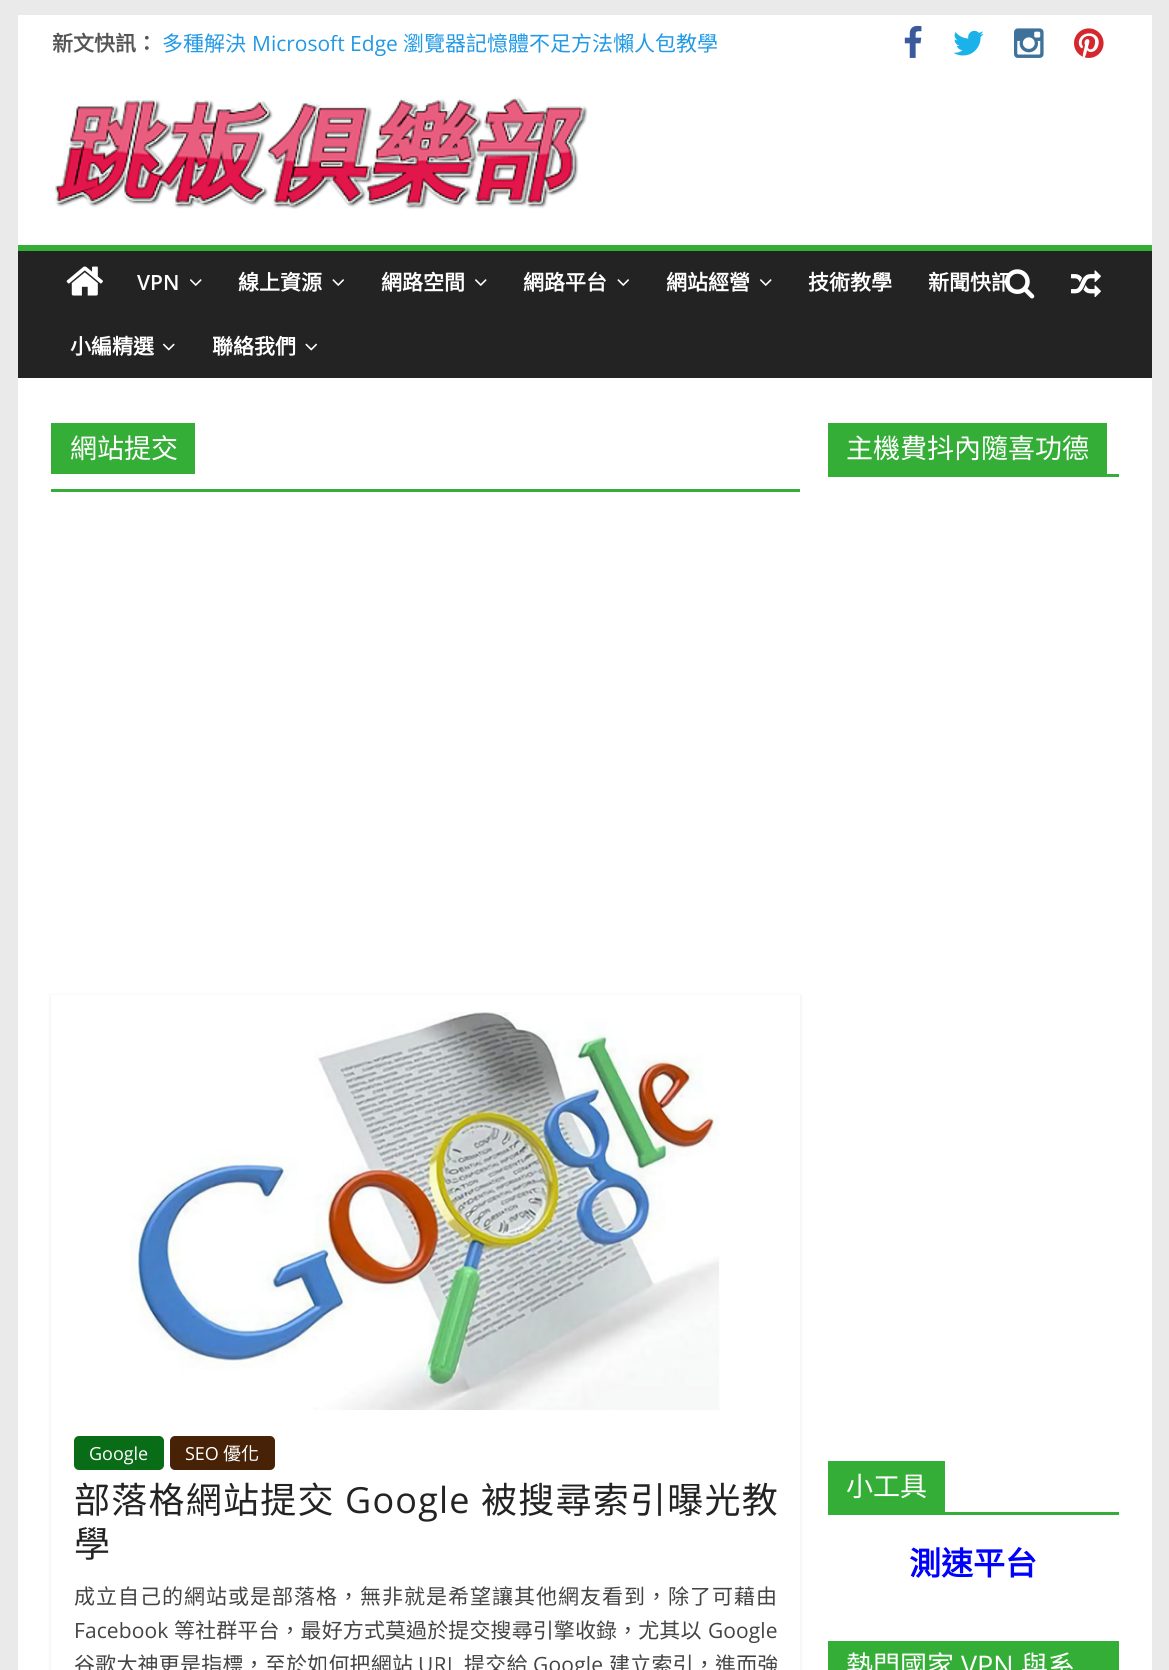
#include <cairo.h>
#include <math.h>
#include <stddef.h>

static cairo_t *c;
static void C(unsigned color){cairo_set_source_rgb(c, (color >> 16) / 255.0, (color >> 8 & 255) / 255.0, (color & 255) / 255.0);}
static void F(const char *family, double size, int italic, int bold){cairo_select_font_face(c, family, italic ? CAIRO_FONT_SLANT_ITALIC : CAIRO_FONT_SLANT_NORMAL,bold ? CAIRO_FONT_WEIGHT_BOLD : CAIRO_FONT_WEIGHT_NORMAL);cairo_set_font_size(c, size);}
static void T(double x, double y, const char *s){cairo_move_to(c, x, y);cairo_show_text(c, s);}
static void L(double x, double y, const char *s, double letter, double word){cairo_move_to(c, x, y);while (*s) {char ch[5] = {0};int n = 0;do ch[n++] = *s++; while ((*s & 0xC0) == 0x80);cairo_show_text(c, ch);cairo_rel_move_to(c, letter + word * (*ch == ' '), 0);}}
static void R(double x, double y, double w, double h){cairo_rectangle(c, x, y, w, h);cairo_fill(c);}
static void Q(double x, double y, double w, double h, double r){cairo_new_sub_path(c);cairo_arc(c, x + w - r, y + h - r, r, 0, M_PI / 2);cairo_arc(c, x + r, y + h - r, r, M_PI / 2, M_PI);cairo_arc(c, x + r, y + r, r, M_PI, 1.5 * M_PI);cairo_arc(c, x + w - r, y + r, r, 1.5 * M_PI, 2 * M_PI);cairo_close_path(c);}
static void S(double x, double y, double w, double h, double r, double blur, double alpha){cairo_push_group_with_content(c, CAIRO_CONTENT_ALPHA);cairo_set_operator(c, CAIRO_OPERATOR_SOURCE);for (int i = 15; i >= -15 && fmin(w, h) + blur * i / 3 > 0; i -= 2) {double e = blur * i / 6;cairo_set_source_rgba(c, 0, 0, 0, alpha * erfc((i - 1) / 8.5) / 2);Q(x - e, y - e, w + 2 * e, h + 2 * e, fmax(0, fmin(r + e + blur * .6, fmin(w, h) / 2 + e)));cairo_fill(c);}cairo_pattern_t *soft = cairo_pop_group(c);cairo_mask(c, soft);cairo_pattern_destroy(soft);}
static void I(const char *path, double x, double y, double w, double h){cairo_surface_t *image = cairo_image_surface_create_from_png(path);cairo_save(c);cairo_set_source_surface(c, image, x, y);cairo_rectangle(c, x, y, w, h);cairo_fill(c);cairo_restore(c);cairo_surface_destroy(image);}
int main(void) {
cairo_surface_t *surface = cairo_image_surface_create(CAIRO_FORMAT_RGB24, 1169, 1670);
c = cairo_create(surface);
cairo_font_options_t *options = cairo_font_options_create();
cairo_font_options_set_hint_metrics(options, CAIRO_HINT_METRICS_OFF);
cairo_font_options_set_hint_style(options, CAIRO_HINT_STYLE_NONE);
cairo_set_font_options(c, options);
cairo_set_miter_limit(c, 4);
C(0xeaeaea);
cairo_paint(c);
C(0xffffff);
R(18,15,1134,230);
F("Noto Sans CJK TC",21,0,1);
C(0x555555);
T(52,51,"新文快訊：");
F("Noto Sans CJK TC",21,0,0);
C(0x2299e5);
T(162,51,"多種解決");
F("Open Sans",21,0,0);
T(252,51,"Microsoft Edge");
F("Noto Sans CJK TC",21,0,0);
T(403,51,"瀏覽器記憶體不足方法懶人包教學");
I("1.png",904,25,18,33);
I("2.png",953,30,31,26);
I("3.png",1014,28,30,30);
I("4.png",1074,28,30,30);
I("5.png",54,97,534,112);
C(0x232323);
R(18,251,1134,127);
C(0x35ae37);
R(18,245,1134,6);
I("6.png",66,266,37,30);
F("Noto Sans CJK TC",21,0,1);
C(0xffffff);
T(928,290,"新聞快訊");
I("7.png",1005,269,30,30);
I("8.png",1071,270,30,27);
F("Open Sans SemiBold",21,0,0);
T(137,290,"VPN");
I("9.png",190,279,12,7);
F("Noto Sans CJK TC",21,0,1);
T(238,290,"線上資源");
I("10.png",332,279,12,7);
T(381,290,"網路空間");
I("9.png",475,279,12,7);
T(523,290,"網路平台");
I("10.png",617,279,12,7);
T(666,290,"網站經營");
I("9.png",760,279,12,7);
T(808,290,"技術教學");
T(70,354,"小編精選");
I("11.png",162,343,13,8);
T(212,354,"聯絡我們");
I("12.png",305,343,13,8);
R(18,378,1134,1292);
C(0x35ae37);
R(51,489,749,3);
R(51,423,144,51);
F("Noto Sans CJK TC",27,0,0);
C(0xffffff);
T(70,458,"網站提交");
cairo_save(c);
cairo_set_fill_rule(c,CAIRO_FILL_RULE_EVEN_ODD);
cairo_new_path(c);
cairo_move_to(c,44,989);
cairo_line_to(c,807,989);
cairo_line_to(c,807,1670);
cairo_line_to(c,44,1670);
cairo_close_path(c);
cairo_move_to(c,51,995);
cairo_line_to(c,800,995);
cairo_line_to(c,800,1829);
cairo_line_to(c,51,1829);
cairo_close_path(c);
cairo_clip(c);
C(0x000000);
S(51,996,749,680,0,2,.1);
cairo_restore(c);
I("13.png",130,1012,590,398);
C(0x096c17);
Q(74,1436,90,34,5);
cairo_fill(c);
F("Open Sans",18,0,0);
C(0xffffff);
T(89,1460,"Google");
C(0x472206);
Q(170,1436,105,34,5);
cairo_fill(c);
C(0xffffff);
T(185,1460,"SEO");
F("Noto Sans CJK TC",18,0,0);
T(223,1460,"優化");
F("Noto Sans CJK TC",36,0,0);
C(0x232323);
L(74,1513,"部落格網站提交",1.25,0);
F("Open Sans",36,0,0);
L(345,1513,"Google",1.25,0);
F("Noto Sans CJK TC",36,0,0);
L(481,1513,"被搜尋索引曝光教",1.25,0);
T(74,1557,"學");
F("Noto Sans CJK TC",21,0,0);
C(0x444444);
L(74,1604,"成立自己的網站或是部落格，無非就是希望讓其他網友看到，除了可藉由",1,0);
F("Open Sans",21,0,0);
L(74,1638,"Facebook",.1,0);
F("Noto Sans CJK TC",21,0,0);
L(174,1638,"等社群平台，最好方式莫過於提交搜尋引擎收錄，尤其以",.1,0);
F("Open Sans",21,0,0);
L(708,1638,"Google",.1,0);
F("Noto Sans CJK TC",21,0,0);
L(74,1672,"谷歌大神更是指標，至於如何把網站",.2,0);
F("Open Sans",21,0,0);
L(418,1672,"URL",.2,0);
F("Noto Sans CJK TC",21,0,0);
L(464,1672,"提交給",.2,0);
F("Open Sans",21,0,0);
L(533,1672,"Google",.2,0);
F("Noto Sans CJK TC",21,0,0);
L(609,1672,"建立索引，進而強",.2,0);
C(0x35ae37);
R(828,474,291,3);
R(828,423,279,51);
F("Noto Sans CJK TC",27,0,0);
C(0xffffff);
T(846,458,"主機費抖內隨喜功德");
C(0x35ae37);
R(828,1512,291,3);
R(828,1461,117,51);
C(0xffffff);
T(846,1496,"小工具");
F("Noto Sans CJK TC",32,0,1);
C(0x0000ff);
T(909,1575,"測速平台");
C(0x35ae37);
R(828,1641,291,29);
F("Noto Sans CJK TC",27,0,0);
C(0xffffff);
T(846,1675,"熱門國家");
F("Open Sans",27,0,0);
T(961,1675,"VPN");
F("Noto Sans CJK TC",27,0,0);
T(1021,1675,"與系");
cairo_surface_write_to_png(surface, "o.png");
cairo_font_options_destroy(options);
cairo_destroy(c);
cairo_surface_destroy(surface);
return 0;
}
